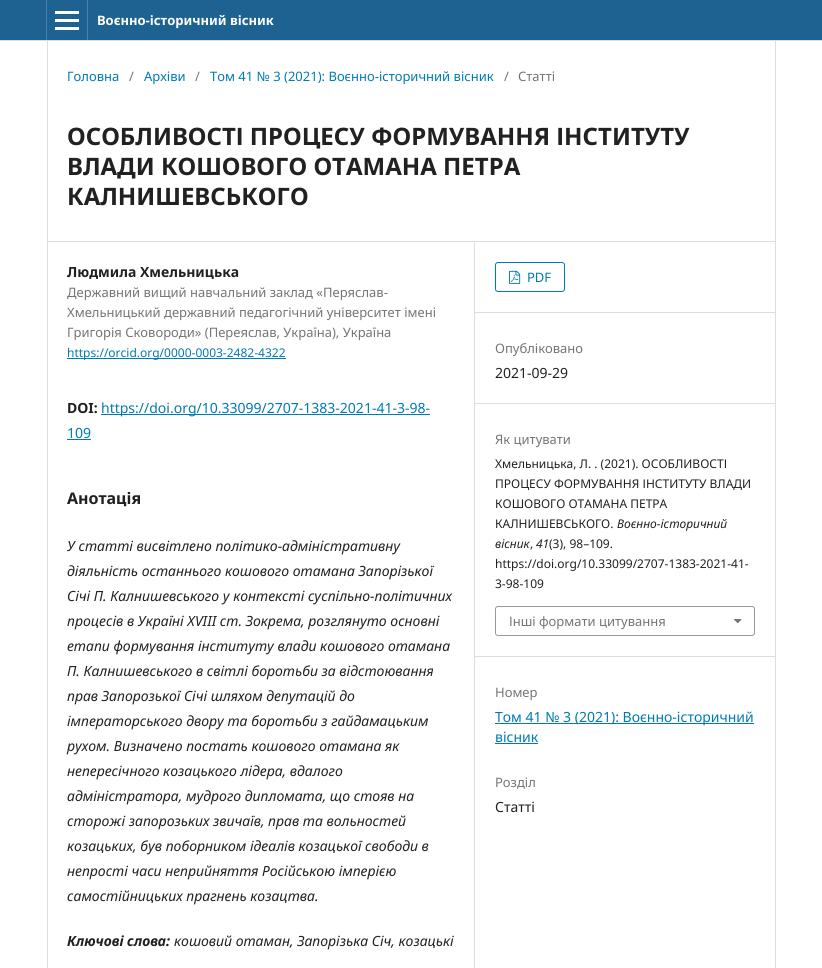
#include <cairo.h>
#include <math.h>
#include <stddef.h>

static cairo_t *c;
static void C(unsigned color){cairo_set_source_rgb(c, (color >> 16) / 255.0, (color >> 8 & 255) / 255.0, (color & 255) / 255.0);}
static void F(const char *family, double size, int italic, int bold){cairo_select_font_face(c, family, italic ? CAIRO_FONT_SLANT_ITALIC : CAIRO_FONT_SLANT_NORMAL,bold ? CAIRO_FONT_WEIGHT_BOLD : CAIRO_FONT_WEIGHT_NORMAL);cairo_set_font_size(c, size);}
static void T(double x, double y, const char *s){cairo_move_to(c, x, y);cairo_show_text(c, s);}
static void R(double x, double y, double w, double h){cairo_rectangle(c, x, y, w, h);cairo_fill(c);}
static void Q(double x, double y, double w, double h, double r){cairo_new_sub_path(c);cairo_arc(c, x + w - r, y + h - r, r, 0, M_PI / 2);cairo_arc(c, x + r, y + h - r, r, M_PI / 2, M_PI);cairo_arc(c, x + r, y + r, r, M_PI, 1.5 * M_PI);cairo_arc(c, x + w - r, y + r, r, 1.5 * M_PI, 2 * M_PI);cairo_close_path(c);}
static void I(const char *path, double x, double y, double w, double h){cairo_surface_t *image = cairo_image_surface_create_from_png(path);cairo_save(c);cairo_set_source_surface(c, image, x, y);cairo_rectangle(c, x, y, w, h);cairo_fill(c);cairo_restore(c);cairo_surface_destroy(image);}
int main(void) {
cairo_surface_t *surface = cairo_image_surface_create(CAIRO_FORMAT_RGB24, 822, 968);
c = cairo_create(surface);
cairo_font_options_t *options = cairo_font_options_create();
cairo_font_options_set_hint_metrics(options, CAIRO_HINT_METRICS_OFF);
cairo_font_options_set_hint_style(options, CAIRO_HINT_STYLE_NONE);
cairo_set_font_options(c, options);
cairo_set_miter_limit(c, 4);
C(0xffffff);
cairo_paint(c);
C(0x1e6292);
R(0,0,822,40);
C(0xdddddd);
R(0,40,822,1);
C(0x4b81a8);
R(46,0,1,40);
R(87,0,1,40);
C(0xffffff);
R(55,27,24,3);
R(55,11,24,3);
R(55,19,24,3);
F("Noto Sans",13,0,1);
T(97,25,"Воєнно-історичний вісник");
C(0xdddddd);
R(47,241,728,1);
R(47,41,1,927);
F("Noto Sans",13,0,0);
C(0x007ab2);
T(67,81,"Головна");
C(0x757575);
T(129,81,"/");
C(0x007ab2);
T(144,81,"Архіви");
C(0x757575);
T(195,81,"/");
C(0x007ab2);
T(210,81,"Том 41 № 3 (2021): Воєнно-історичний вісник");
C(0x757575);
T(504,81,"/");
T(518,81,"Статті");
F("Noto Sans",24,0,1);
C(0x212121);
T(67,145,"ОСОБЛИВОСТІ ПРОЦЕСУ ФОРМУВАННЯ ІНСТИТУТУ");
T(67,175,"ВЛАДИ КОШОВОГО ОТАМАНА ПЕТРА");
T(67,205,"КАЛНИШЕВСЬКОГО");
C(0xdddddd);
R(474,242,1,726);
F("Noto Sans",14,0,1);
C(0x212121);
T(67,277,"Людмила Хмельницька");
F("Noto Sans",13,0,0);
C(0x757575);
T(67,297,"Державний вищий навчальний заклад «Перяслав-");
T(67,317,"Хмельницький державний педагогічний університет імені");
T(67,337,"Григорія Сковороди» (Переяслав, Україна), Україна");
C(0x007ab2);
R(67,358,219,1);
F("Noto Sans",12,0,0);
T(67,357,"https://orcid.org/0000-0003-2482-4322");
F("Noto Sans",14,0,1);
C(0x212121);
T(67,413,"DOI:");
C(0x007ab2);
R(101,414,329,1);
F("Noto Sans",14,0,0);
T(101,413,"https://doi.org/10.33099/2707-1383-2021-41-3-98-");
T(67,438,"109");
R(67,439,24,1);
F("Noto Sans",16,0,1);
C(0x212121);
T(67,504,"Анотація");
F("Noto Sans",14,1,0);
T(67,551,"У статті висвітлено політико-адміністративну");
T(67,576,"діяльність останнього кошового отамана Запорізької");
T(67,601,"Січі П. Калнишевського у контексті суспільно-політичних");
T(67,626,"процесів в Україні ХVIII ст. Зокрема, розглянуто основні");
T(67,651,"етапи формування інституту влади кошового отамана");
T(67,676,"П. Калнишевського в світлі боротьби за відстоювання");
T(67,701,"прав Запорозької Січі шляхом депутацій до");
T(67,726,"імператорського двору та боротьби з гайдамацьким");
T(67,751,"рухом. Визначено постать кошового отамана як");
T(67,776,"непересічного козацького лідера, вдалого");
T(67,801,"адміністратора, мудрого дипломата, що стояв на");
T(67,826,"сторожі запорозьких звичаїв, прав та вольностей");
T(67,851,"козацьких, був поборником ідеалів козацької свободи в");
T(67,876,"непрості часи неприйняття Російською імперією");
T(67,901,"самостійницьких прагнень козацтва.");
F("Noto Sans",14,1,1);
T(67,946,"Ключові слова:");
F("Noto Sans",14,1,0);
T(174,946,"кошовий отаман, Запорізька Січ, козацькі");
C(0xdddddd);
R(475,312,300,1);
Q(495.5,262.5,69,29,2.5);
C(0x007ab2);
cairo_set_line_width(c,1);
cairo_stroke(c);
I("1.png",509,270,12,14);
F("Noto Sans",13,0,0);
T(527,282,"PDF");
C(0xdddddd);
R(475,403,300,1);
C(0x757575);
T(495,353,"Опубліковано");
F("Noto Sans",14,0,0);
C(0x212121);
T(495,378,"2021-09-29");
C(0xdddddd);
R(475,656,300,1);
F("Noto Sans",13,0,0);
C(0x757575);
T(495,444,"Як цитувати");
F("Noto Sans",12,0,0);
C(0x212121);
T(495,468,"Хмельницька, Л. . (2021). ОСОБЛИВОСТІ");
T(495,488,"ПРОЦЕСУ ФОРМУВАННЯ ІНСТИТУТУ ВЛАДИ");
T(495,508,"КОШОВОГО ОТАМАНА ПЕТРА");
T(495,528,"КАЛНИШЕВСЬКОГО.");
F("Noto Sans",12,1,0);
T(617,528,"Воєнно-історичний");
T(495,548,"вісник");
F("Noto Sans",12,0,0);
T(530,548,",");
F("Noto Sans",12,1,0);
T(536,548,"41");
F("Noto Sans",12,0,0);
T(549,548,"(3), 98–109.");
T(495,568,"https://doi.org/10.33099/2707-1383-2021-41-");
T(495,588,"3-98-109");
Q(495.5,606.5,259,29,2.5);
C(0x999999);
cairo_stroke(c);
F("Noto Sans",13,0,0);
C(0x757575);
T(509,626,"Інші формати цитування");
I("2.png",734,619,8,5);
T(495,697,"Номер");
C(0x007ab2);
R(495,723,259,1);
F("Noto Sans",14,0,0);
T(495,722,"Том 41 № 3 (2021): Воєнно-історичний");
T(495,742,"вісник");
R(495,743,43,1);
F("Noto Sans",13,0,0);
C(0x757575);
T(495,787,"Розділ");
F("Noto Sans",14,0,0);
C(0x212121);
T(495,812,"Статті");
C(0xdddddd);
R(775,41,1,927);
cairo_surface_write_to_png(surface, "o.png");
cairo_font_options_destroy(options);
cairo_destroy(c);
cairo_surface_destroy(surface);
return 0;
}
